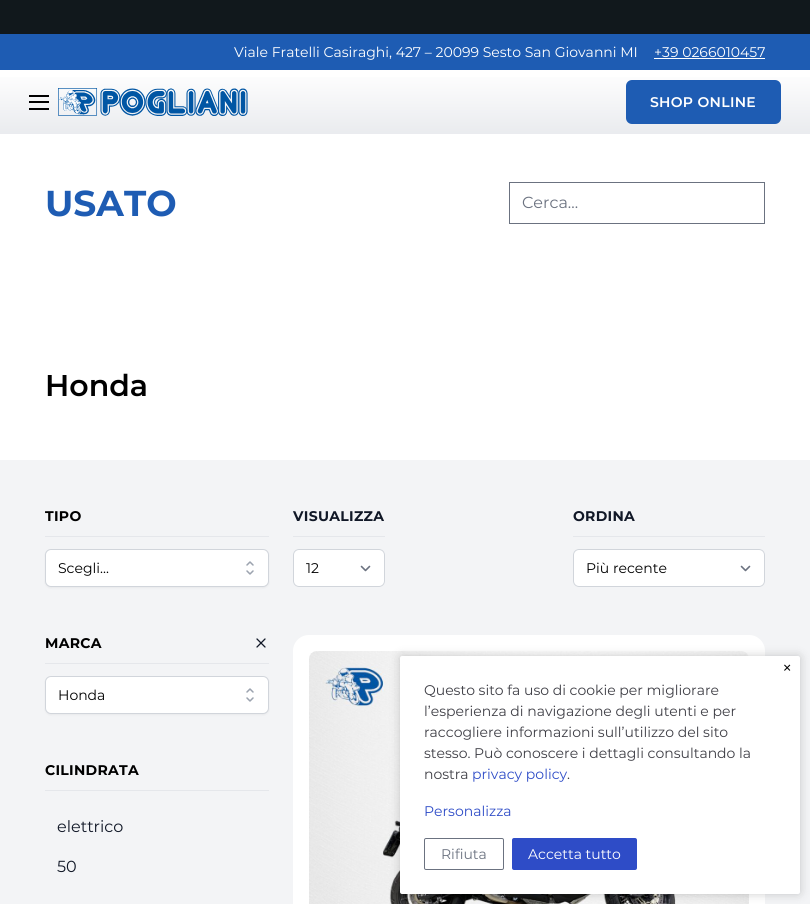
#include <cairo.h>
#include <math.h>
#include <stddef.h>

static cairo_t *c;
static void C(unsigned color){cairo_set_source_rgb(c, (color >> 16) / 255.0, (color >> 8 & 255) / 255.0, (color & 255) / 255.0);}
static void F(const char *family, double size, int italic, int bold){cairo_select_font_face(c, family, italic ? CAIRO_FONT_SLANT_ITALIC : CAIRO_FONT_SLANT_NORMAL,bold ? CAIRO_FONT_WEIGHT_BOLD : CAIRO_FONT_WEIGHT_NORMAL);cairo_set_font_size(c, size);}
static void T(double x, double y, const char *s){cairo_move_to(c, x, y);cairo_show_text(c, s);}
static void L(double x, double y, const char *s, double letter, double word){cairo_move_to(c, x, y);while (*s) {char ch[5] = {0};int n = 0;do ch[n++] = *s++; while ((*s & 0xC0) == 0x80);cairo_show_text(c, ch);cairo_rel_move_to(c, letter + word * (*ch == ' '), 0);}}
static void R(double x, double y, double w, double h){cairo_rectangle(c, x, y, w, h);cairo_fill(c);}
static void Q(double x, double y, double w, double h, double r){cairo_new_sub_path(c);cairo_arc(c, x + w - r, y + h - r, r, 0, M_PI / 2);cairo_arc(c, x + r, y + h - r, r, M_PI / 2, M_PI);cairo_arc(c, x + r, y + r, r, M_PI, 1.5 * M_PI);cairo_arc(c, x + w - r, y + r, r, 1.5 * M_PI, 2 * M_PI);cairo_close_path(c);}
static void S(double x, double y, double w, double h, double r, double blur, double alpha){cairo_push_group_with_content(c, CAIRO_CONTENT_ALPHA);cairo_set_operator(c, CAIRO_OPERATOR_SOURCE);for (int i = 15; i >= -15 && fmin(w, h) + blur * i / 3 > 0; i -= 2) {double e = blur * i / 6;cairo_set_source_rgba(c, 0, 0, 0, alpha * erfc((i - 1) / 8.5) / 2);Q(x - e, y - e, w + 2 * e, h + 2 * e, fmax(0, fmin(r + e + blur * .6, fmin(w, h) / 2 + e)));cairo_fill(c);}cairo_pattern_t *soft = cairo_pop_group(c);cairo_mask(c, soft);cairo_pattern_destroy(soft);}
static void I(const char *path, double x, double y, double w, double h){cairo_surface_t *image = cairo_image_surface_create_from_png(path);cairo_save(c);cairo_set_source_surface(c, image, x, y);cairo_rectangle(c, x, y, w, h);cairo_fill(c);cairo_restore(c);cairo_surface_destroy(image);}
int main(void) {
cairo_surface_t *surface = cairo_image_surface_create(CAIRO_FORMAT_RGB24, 810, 904);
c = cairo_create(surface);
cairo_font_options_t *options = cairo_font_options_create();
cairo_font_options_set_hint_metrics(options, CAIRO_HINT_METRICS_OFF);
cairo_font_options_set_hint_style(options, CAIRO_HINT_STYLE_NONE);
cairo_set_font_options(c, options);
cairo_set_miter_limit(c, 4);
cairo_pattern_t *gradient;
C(0xffffff);
cairo_paint(c);
C(0x11181c);
R(0,0,810,34);
C(0x1e5cb3);
R(0,34,810,36);
F("Montserrat",14,0,0);
C(0xffffff);
T(234,57,"Viale Fratelli Casiraghi, 427 – 20099 Sesto San Giovanni MI");
T(654,57,"+39 0266010457");
R(654,58,111,1);
gradient = cairo_pattern_create_linear(405,70,405,147);
cairo_pattern_add_color_stop_rgba(gradient,0,1,1,1,1);
cairo_pattern_add_color_stop_rgba(gradient,1,0.898,0.906,0.922,1);
cairo_set_source(c,gradient);
cairo_pattern_destroy(gradient);
R(0,77,810,57);
C(0x000000);
R(29,95,20,2);
R(29,101,20,2);
R(29,108,20,2);
I("1.png",58,88,190,28);
C(0x1e5cb3);
Q(626,80,155,44,6);
cairo_fill(c);
F("Montserrat SemiBold",14,0,0);
C(0xffffff);
L(650,107,"SHOP ONLINE",.3,0);
F("Montserrat",36,0,1);
C(0x1e5cb3);
T(45,216,"USATO");
cairo_rectangle(c,509.5,182.5,255,41);
C(0x6b7280);
cairo_set_line_width(c,1);
cairo_stroke(c);
F("Montserrat",16,0,0);
T(522,208,"Cerca...");
F("Montserrat SemiBold",30,0,0);
C(0x000000);
T(45,396,"Honda");
C(0xf3f4f6);
R(0,460,810,444);
F("Montserrat",14,0,1);
C(0x000000);
L(45,521,"TIPO",.3,0);
C(0xe5e7eb);
R(45,536,224,1);
C(0x000000);
S(45,550,224,38,6,1,.05);
C(0xffffff);
Q(45.5,549.5,223,37,5.5);
cairo_fill_preserve(c);
C(0xd1d5db);
cairo_stroke(c);
F("Montserrat",14,0,0);
C(0x000000);
T(58,573,"Scegli...");
cairo_new_path(c);
cairo_move_to(c,247,565);
cairo_line_to(c,250,562);
cairo_line_to(c,253,565);
cairo_move_to(c,253,571);
cairo_line_to(c,250,574);
cairo_line_to(c,247,571);
C(0x9ca3af);
cairo_set_line_width(c,1.5);
cairo_set_line_cap(c,CAIRO_LINE_CAP_ROUND);
cairo_set_line_join(c,CAIRO_LINE_JOIN_ROUND);
cairo_stroke(c);
F("Montserrat",14,0,1);
C(0x000000);
L(45,648,"MARCA",.3,0);
cairo_new_path(c);
cairo_move_to(c,257,647);
cairo_line_to(c,265,639);
cairo_move_to(c,257,639);
cairo_line_to(c,265,647);
C(0x111827);
cairo_set_line_width(c,1.3);
cairo_stroke(c);
C(0xe5e7eb);
R(45,663,224,1);
C(0x000000);
S(45,677,224,38,6,1,.05);
C(0xffffff);
Q(45.5,676.5,223,37,5.5);
cairo_fill_preserve(c);
C(0xd1d5db);
cairo_set_line_width(c,1);
cairo_set_line_cap(c,CAIRO_LINE_CAP_BUTT);
cairo_set_line_join(c,CAIRO_LINE_JOIN_MITER);
cairo_stroke(c);
F("Montserrat",14,0,0);
C(0x000000);
T(58,700,"Honda");
cairo_new_path(c);
cairo_move_to(c,247,692);
cairo_line_to(c,250,689);
cairo_line_to(c,253,692);
cairo_move_to(c,253,698);
cairo_line_to(c,250,701);
cairo_line_to(c,247,698);
C(0x9ca3af);
cairo_set_line_width(c,1.5);
cairo_set_line_cap(c,CAIRO_LINE_CAP_ROUND);
cairo_set_line_join(c,CAIRO_LINE_JOIN_ROUND);
cairo_stroke(c);
F("Montserrat",14,0,1);
C(0x000000);
L(45,775,"CILINDRATA",.3,0);
C(0xe5e7eb);
R(45,790,224,1);
F("Montserrat",16,0,0);
C(0x111827);
T(57,832,"elettrico");
T(57,872,"50");
F("Montserrat",14,0,1);
L(293,521,"VISUALIZZA",.3,0);
C(0xe5e7eb);
R(293,536,92,1);
C(0xffffff);
Q(293,549,92,38,6);
cairo_fill(c);
cairo_new_path(c);
cairo_move_to(c,361.5,566.5);
cairo_line_to(c,365.5,570.5);
cairo_line_to(c,369.5,566.5);
C(0x6b7280);
cairo_set_line_width(c,1.6);
cairo_stroke(c);
Q(293.5,549.5,91,37,5.5);
C(0xd1d5db);
cairo_set_line_width(c,1);
cairo_set_line_cap(c,CAIRO_LINE_CAP_BUTT);
cairo_set_line_join(c,CAIRO_LINE_JOIN_MITER);
cairo_stroke(c);
F("Montserrat",14,0,0);
C(0x000000);
T(306,573,"12");
F("Montserrat",14,0,1);
C(0x111827);
L(573,521,"ORDINA",.3,0);
C(0xe5e7eb);
R(573,536,192,1);
C(0xffffff);
Q(573,549,192,38,6);
cairo_fill(c);
cairo_new_path(c);
cairo_move_to(c,741.5,566.5);
cairo_line_to(c,745.5,570.5);
cairo_line_to(c,749.5,566.5);
C(0x6b7280);
cairo_set_line_width(c,1.6);
cairo_set_line_cap(c,CAIRO_LINE_CAP_ROUND);
cairo_set_line_join(c,CAIRO_LINE_JOIN_ROUND);
cairo_stroke(c);
Q(573.5,549.5,191,37,5.5);
C(0xd1d5db);
cairo_set_line_width(c,1);
cairo_set_line_cap(c,CAIRO_LINE_CAP_BUTT);
cairo_set_line_join(c,CAIRO_LINE_JOIN_MITER);
cairo_stroke(c);
F("Montserrat",14,0,0);
C(0x000000);
T(586,573,"Più recente");
C(0xffffff);
Q(293,635,472,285,16);
cairo_fill(c);
I("2.png",309,651,440,253);
C(0x000000);
S(400,656,400,238,2,5,.2);
C(0xffffff);
Q(400,656,400,238,2);
cairo_fill(c);
F("Montserrat",18,0,0);
C(0x000000);
T(782,674,"×");
F("Montserrat",14,0,0);
C(0x3f3f46);
T(424,695,"Questo sito fa uso di cookie per migliorare");
T(424,716,"l’esperienza di navigazione degli utenti e per");
T(424,737,"raccogliere informazioni sull’utilizzo del sito");
T(424,758,"stesso. Può conoscere i dettagli consultando la");
T(424,779,"nostra");
C(0x2e4cc7);
T(472,779,"privacy policy");
C(0x3f3f46);
T(567,779,".");
C(0x2e4cc7);
T(424,816,"Personalizza");
Q(424.5,838.5,79,31,1.5);
C(0x6b7280);
cairo_stroke(c);
T(441,859,"Rifiuta");
C(0x2e4cc7);
Q(512,838,125,32,2);
cairo_fill(c);
C(0xffffff);
T(528,859,"Accetta tutto");
cairo_surface_write_to_png(surface, "o.png");
cairo_font_options_destroy(options);
cairo_destroy(c);
cairo_surface_destroy(surface);
return 0;
}
